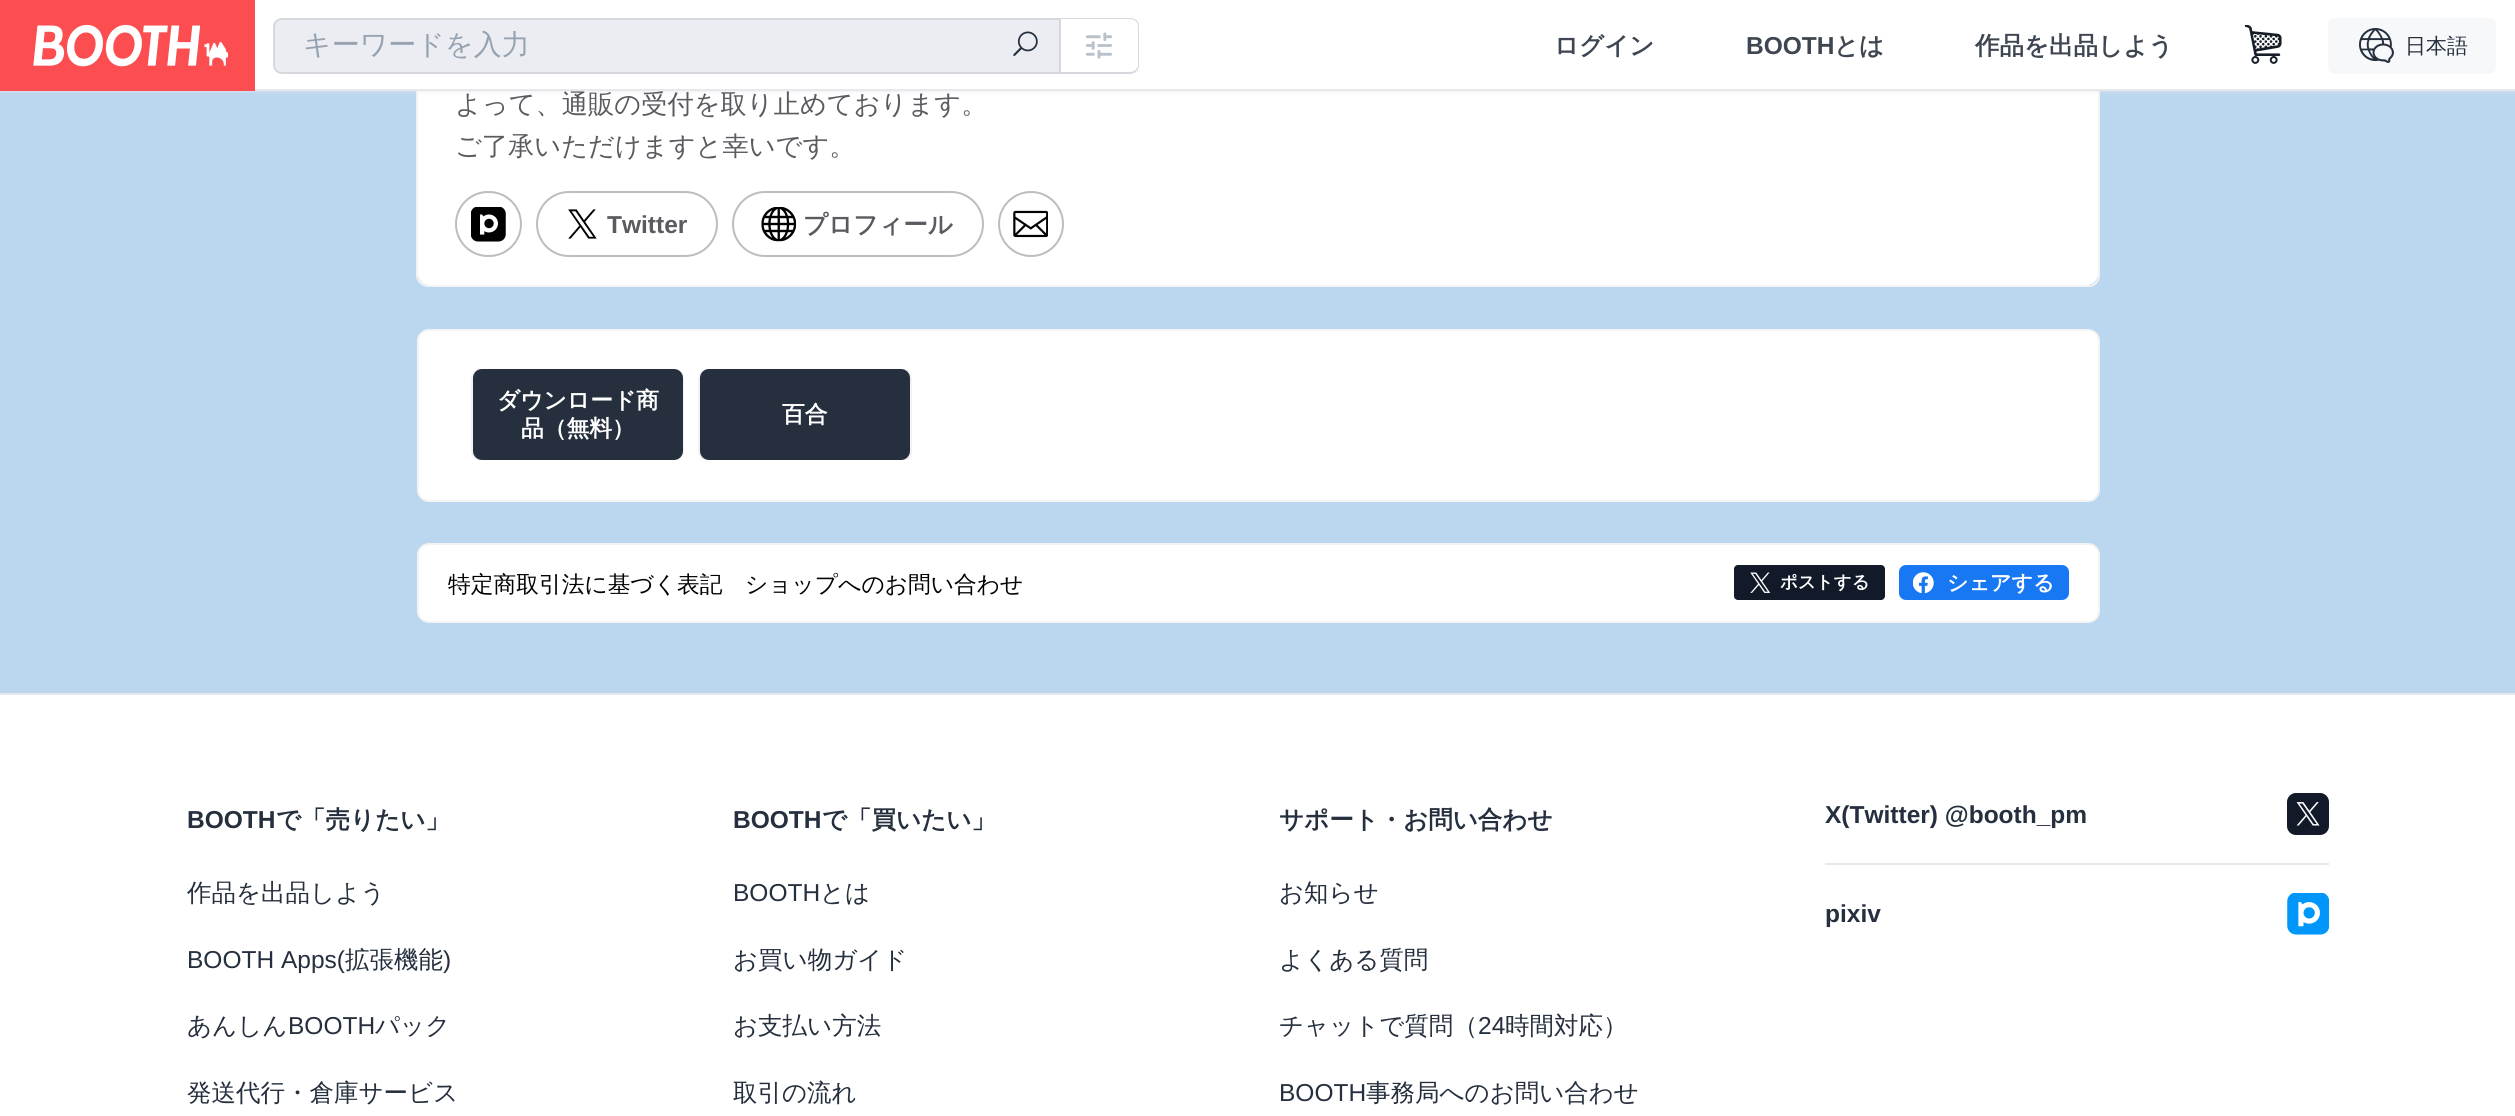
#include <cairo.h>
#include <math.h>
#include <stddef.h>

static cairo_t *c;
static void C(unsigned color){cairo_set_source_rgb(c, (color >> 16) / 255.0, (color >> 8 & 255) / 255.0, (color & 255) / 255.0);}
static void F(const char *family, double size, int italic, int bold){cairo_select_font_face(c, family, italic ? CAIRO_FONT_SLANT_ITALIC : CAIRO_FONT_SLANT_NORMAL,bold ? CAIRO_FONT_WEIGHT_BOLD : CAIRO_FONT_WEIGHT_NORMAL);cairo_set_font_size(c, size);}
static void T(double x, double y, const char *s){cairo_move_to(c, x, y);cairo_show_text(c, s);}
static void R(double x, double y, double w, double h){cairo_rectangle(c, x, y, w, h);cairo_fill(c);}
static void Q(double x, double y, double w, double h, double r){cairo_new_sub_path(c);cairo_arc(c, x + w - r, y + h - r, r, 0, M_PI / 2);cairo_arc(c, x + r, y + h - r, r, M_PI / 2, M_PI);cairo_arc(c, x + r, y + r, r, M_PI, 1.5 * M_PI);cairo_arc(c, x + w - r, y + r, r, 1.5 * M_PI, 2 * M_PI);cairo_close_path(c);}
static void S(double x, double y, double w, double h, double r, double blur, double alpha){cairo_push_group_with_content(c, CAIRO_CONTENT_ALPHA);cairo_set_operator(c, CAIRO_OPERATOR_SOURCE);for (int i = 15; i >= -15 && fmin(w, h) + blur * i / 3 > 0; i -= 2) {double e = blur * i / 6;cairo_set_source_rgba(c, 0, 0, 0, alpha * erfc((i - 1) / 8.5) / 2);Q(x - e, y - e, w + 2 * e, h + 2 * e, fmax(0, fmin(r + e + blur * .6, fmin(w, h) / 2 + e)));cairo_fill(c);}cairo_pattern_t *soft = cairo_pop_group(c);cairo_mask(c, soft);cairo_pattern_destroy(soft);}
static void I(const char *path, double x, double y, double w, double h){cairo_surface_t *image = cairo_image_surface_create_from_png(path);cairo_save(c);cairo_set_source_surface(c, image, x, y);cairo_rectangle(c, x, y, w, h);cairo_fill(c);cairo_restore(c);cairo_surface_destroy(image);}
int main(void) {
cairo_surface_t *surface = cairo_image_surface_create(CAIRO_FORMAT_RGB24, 2515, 1116);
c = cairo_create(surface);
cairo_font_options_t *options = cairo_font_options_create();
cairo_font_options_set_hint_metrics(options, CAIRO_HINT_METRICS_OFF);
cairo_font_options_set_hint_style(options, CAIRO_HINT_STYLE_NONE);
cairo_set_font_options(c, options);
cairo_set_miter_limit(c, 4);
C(0xbbd6ef);
cairo_paint(c);
C(0xffffff);
cairo_new_path(c);
cairo_move_to(c,418,-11);
cairo_line_to(c,2098,-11);
cairo_line_to(c,2098,274);
cairo_curve_to(c,2098,280,2093,285,2087,285);
cairo_line_to(c,429,285);
cairo_curve_to(c,423,285,418,280,418,274);
cairo_close_path(c);
cairo_fill(c);
C(0xf3f3f3);
cairo_set_fill_rule(c,CAIRO_FILL_RULE_EVEN_ODD);
cairo_new_path(c);
cairo_move_to(c,416,-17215);
cairo_line_to(c,2100,-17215);
cairo_line_to(c,2100,275);
cairo_curve_to(c,2100,282,2095,287,2088,287);
cairo_line_to(c,429,287);
cairo_curve_to(c,422,287,416,282,416,275);
cairo_close_path(c);
cairo_move_to(c,418,-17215);
cairo_line_to(c,2098,-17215);
cairo_line_to(c,2098,275);
cairo_curve_to(c,2098,281,2094,285,2088,285);
cairo_line_to(c,429,285);
cairo_curve_to(c,423,285,418,281,418,275);
cairo_close_path(c);
cairo_fill(c);
C(0xe6e8eb);
S(0,0,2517,91,0,2,1);
C(0xffffff);
R(255,0,2260,89);
C(0xe6e8eb);
R(255,89,2260,2);
I("1.png",0,0,255,91);
C(0xd5d9de);
cairo_new_path(c);
cairo_move_to(c,1060,18);
cairo_line_to(c,1130,18);
cairo_curve_to(c,1135,18,1139,21,1139,26);
cairo_line_to(c,1139,65);
cairo_curve_to(c,1139,70,1135,74,1130,74);
cairo_line_to(c,1060,74);
cairo_close_path(c);
cairo_move_to(c,1060,19);
cairo_line_to(c,1130,19);
cairo_curve_to(c,1134,19,1138,22,1138,26);
cairo_line_to(c,1138,65);
cairo_curve_to(c,1138,69,1134,72,1130,72);
cairo_line_to(c,1060,72);
cairo_close_path(c);
cairo_fill(c);
C(0xebedf2);
cairo_new_path(c);
cairo_move_to(c,282,19);
cairo_line_to(c,1060,19);
cairo_line_to(c,1060,73);
cairo_line_to(c,282,73);
cairo_curve_to(c,277.5,73,274,69.5,274,65);
cairo_line_to(c,274,27);
cairo_curve_to(c,274,22.5,277.5,19,282,19);
cairo_close_path(c);
cairo_fill_preserve(c);
C(0xd5d9de);
cairo_stroke(c);
F("WenQuanYi Zen Hei Medium",28,0,0);
C(0x96a2b0);
T(303,54,"キーワードを入力");
I("2.png",1013,31,25,25);
I("3.png",1085,32,28,27);
F("WenQuanYi Zen Hei",24.5,0,1);
C(0x3d4651);
T(1554,54,"ログイン");
F("Liberation Sans",24.5,0,1);
T(1746,54,"BOOTH");
F("WenQuanYi Zen Hei",24.5,0,1);
T(1834,54,"とは");
T(1975,54,"作品を出品しよう");
I("4.png",2244,25,38,39);
C(0xf7f8fa);
Q(2328,18,168,56,7);
cairo_fill(c);
I("5.png",2359,28,35,35);
F("WenQuanYi Zen Hei Medium",21,0,0);
C(0x252f3d);
T(2405,53,"日本語");
F("WenQuanYi Zen Hei Medium",26.25,0,0);
C(0x5a5a60);
T(455,113,"よって、通販の受付を取り止めております。");
T(455,155,"ご了承いただけますと幸いです。");
Q(456,192,65,64,32);
C(0xbdbdbf);
cairo_stroke(c);
I("6.png",471,207,35,35);
Q(537,192,180,64,32);
cairo_stroke(c);
I("7.png",568,209,29,30);
F("Liberation Sans",24.5,0,1);
C(0x5a5a60);
T(607,233,"Twitter");
Q(733,192,250,64,32);
C(0xbdbdbf);
cairo_stroke(c);
I("8.png",761,207,35,35);
F("WenQuanYi Zen Hei",24.5,0,1);
C(0x5a5a60);
T(803,233,"プロフィール");
cairo_new_path(c);
cairo_arc(c,1031,224,32,0,2 * M_PI);
C(0xbdbdbf);
cairo_stroke(c);
I("9.png",1013,210,35,28);
C(0xffffff);
Q(418,330,1681,171,11);
cairo_fill_preserve(c);
C(0xf3f3f3);
cairo_stroke(c);
cairo_save(c);
cairo_set_fill_rule(c,CAIRO_FILL_RULE_WINDING);
cairo_rectangle(c,464,369,1589,91);
cairo_clip(c);
Q(472,369,211,92,10);
C(0xf2f2f2);
cairo_stroke(c);
cairo_restore(c);
C(0x252f3d);
Q(473,369,210,91,9);
cairo_fill(c);
F("WenQuanYi Zen Hei",22.75,0,1);
C(0xffffff);
T(497,408,"ダウンロード商");
T(521,436,"品（無料）");
cairo_save(c);
cairo_set_fill_rule(c,CAIRO_FILL_RULE_WINDING);
cairo_rectangle(c,464,369,1589,91);
cairo_clip(c);
Q(699,369,212,92,10);
C(0xf2f2f2);
cairo_stroke(c);
cairo_restore(c);
C(0x252f3d);
Q(700,369,210,91,9);
cairo_fill(c);
C(0xffffff);
T(782,422,"百合");
Q(418,544,1681,78,11);
cairo_fill_preserve(c);
C(0xf3f3f3);
cairo_stroke(c);
F("WenQuanYi Zen Hei Medium",22.75,0,0);
C(0x000000);
T(448,592,"特定商取引法に基づく表記");
T(745,592,"ショップへのお問い合わせ");
C(0x121a29);
Q(1734,565,151,35,4);
cairo_fill(c);
I("10.png",1750,572,21,21);
F("WenQuanYi Zen Hei",17.5,0,1);
C(0xffffff);
T(1780,588,"ポストする");
C(0x1877f2);
Q(1899,565,170,35,7);
cairo_fill(c);
I("11.png",1913,572,21,21);
F("WenQuanYi Zen Hei",21,0,1);
C(0xffffff);
T(1947,590,"シェアする");
R(0,695,2515,421);
C(0xe6e8eb);
R(0,693,2515,2);
F("Liberation Sans",24.5,0,1);
C(0x252f3d);
T(187,828,"BOOTH");
F("WenQuanYi Zen Hei",24.5,0,1);
T(276,828,"で「売りたい」");
F("WenQuanYi Zen Hei Medium",24.5,0,0);
T(187,901,"作品を出品しよう");
F("Liberation Sans",24.5,0,0);
T(187,968,"BOOTH Apps(");
F("WenQuanYi Zen Hei Medium",24.5,0,0);
T(345,968,"拡張機能");
F("Liberation Sans",24.5,0,0);
T(443,968,")");
F("WenQuanYi Zen Hei Medium",24.5,0,0);
T(187,1034,"あんしん");
F("Liberation Sans",24.5,0,0);
T(288,1034,"BOOTH");
F("WenQuanYi Zen Hei Medium",24.5,0,0);
T(375,1034,"パック");
T(187,1101,"発送代行・倉庫サービス");
F("Liberation Sans",24.5,0,1);
T(733,828,"BOOTH");
F("WenQuanYi Zen Hei",24.5,0,1);
T(822,828,"で「買いたい」");
F("Liberation Sans",24.5,0,0);
T(733,901,"BOOTH");
F("WenQuanYi Zen Hei Medium",24.5,0,0);
T(820,901,"とは");
T(733,968,"お買い物ガイド");
T(733,1034,"お支払い方法");
T(733,1101,"取引の流れ");
F("WenQuanYi Zen Hei",24.5,0,1);
T(1279,828,"サポート・お問い合わせ");
F("WenQuanYi Zen Hei Medium",24.5,0,0);
T(1279,901,"お知らせ");
T(1279,968,"よくある質問");
T(1279,1034,"チャットで質問（");
F("Liberation Sans",24.5,0,0);
T(1478,1034,"24");
F("WenQuanYi Zen Hei Medium",24.5,0,0);
T(1505,1034,"時間対応）");
F("Liberation Sans",24.5,0,0);
T(1279,1101,"BOOTH");
F("WenQuanYi Zen Hei Medium",24.5,0,0);
T(1366,1101,"事務局へのお問い合わせ");
F("Liberation Sans",24.5,0,1);
T(1825,823,"X(Twitter) @booth_pm");
C(0x121a29);
Q(2287,793,42,42,9);
cairo_fill(c);
I("12.png",2296,802,24,24);
C(0xe6e8eb);
R(1825,863,504,2);
C(0x252f3d);
T(1825,922,"pixiv");
I("13.png",2287,893,42,42);
cairo_surface_write_to_png(surface, "o.png");
cairo_font_options_destroy(options);
cairo_destroy(c);
cairo_surface_destroy(surface);
return 0;
}
